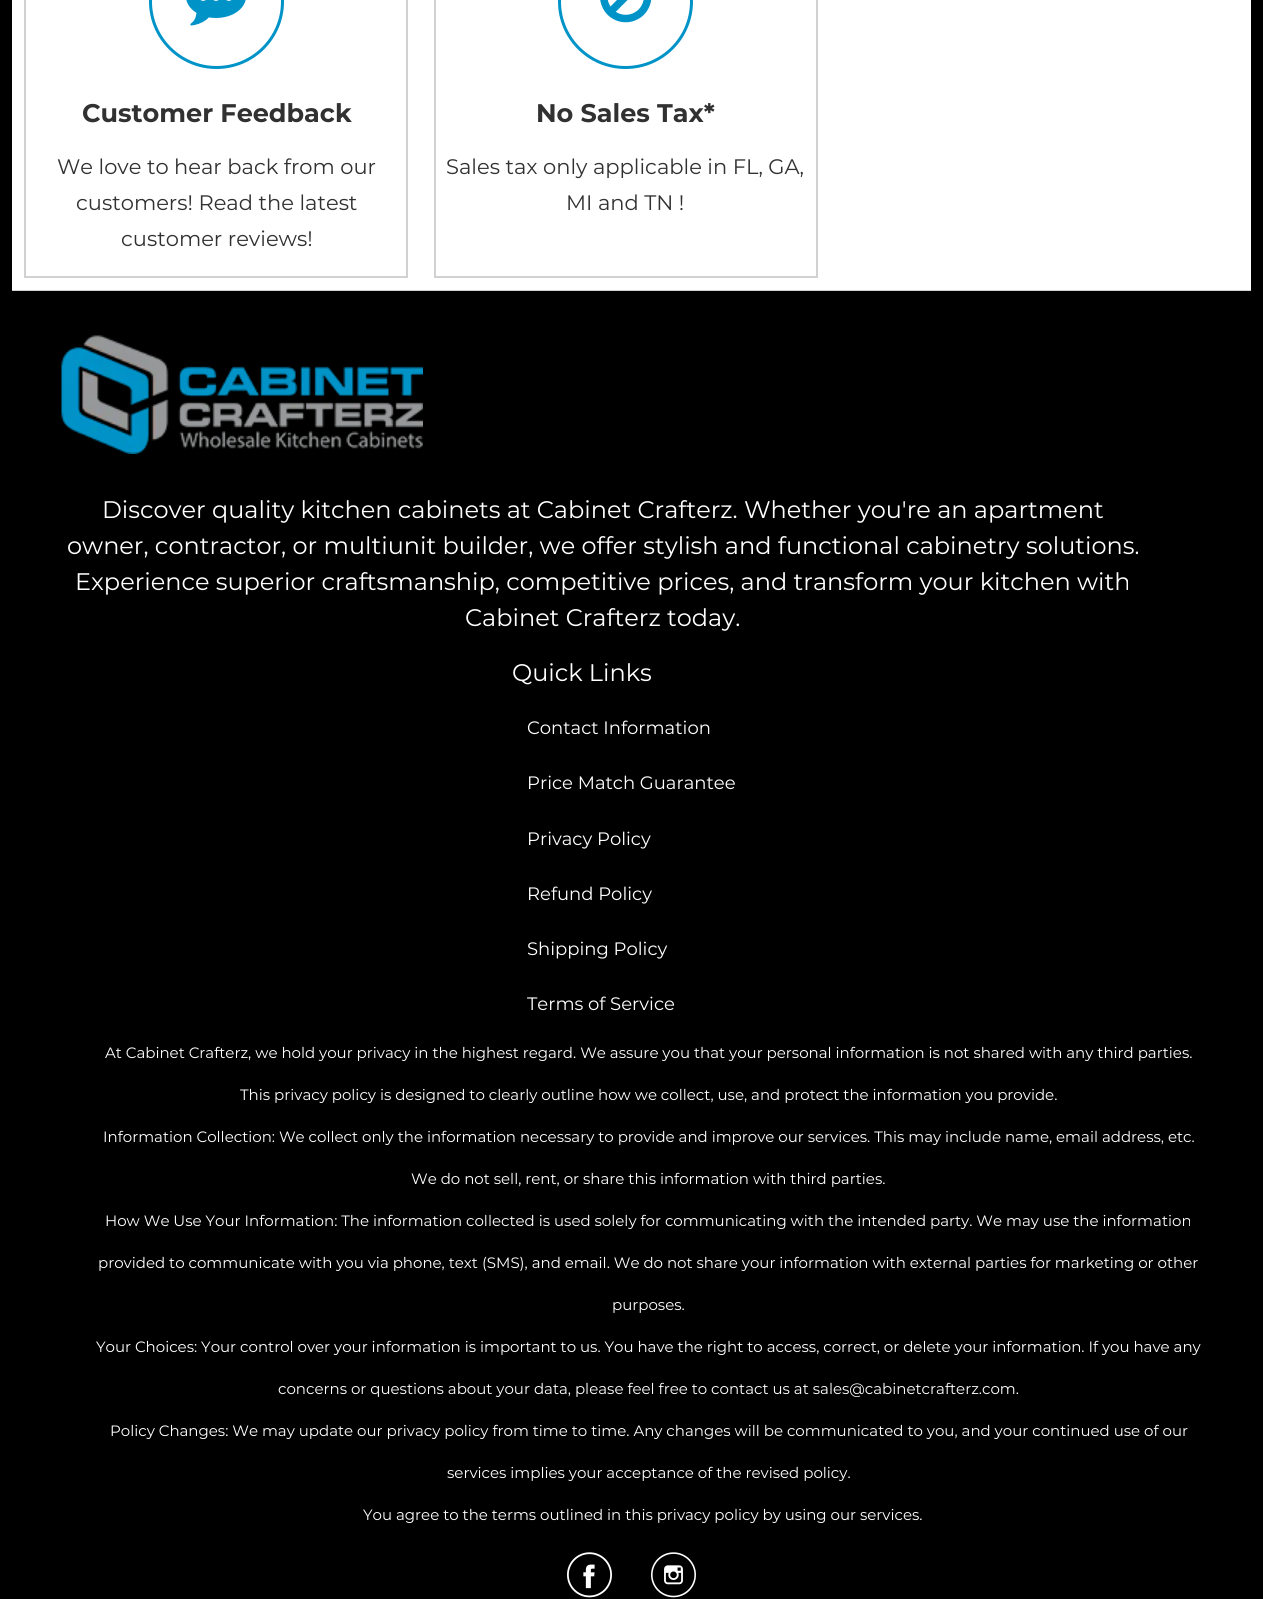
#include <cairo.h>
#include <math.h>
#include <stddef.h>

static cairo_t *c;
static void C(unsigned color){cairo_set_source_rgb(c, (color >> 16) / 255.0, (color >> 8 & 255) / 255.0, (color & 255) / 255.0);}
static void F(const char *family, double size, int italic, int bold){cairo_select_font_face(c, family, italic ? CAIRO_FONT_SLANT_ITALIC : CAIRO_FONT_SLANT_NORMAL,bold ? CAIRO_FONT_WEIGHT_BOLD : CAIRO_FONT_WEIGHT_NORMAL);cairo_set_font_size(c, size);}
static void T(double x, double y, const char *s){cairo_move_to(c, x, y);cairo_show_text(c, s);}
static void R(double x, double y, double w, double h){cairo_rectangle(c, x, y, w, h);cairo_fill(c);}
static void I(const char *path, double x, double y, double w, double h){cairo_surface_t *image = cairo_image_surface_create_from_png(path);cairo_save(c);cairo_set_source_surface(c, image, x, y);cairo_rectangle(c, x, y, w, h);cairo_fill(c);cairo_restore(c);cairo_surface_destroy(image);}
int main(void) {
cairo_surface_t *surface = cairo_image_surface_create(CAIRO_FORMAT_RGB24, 1263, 1599);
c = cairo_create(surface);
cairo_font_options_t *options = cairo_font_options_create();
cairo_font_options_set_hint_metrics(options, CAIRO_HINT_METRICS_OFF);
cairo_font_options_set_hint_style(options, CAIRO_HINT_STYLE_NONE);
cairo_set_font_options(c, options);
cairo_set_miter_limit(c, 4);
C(0x000000);
cairo_paint(c);
C(0xffffff);
R(12,0,1239,290);
C(0xd1d1d1);
R(12,290,1239,1);
cairo_rectangle(c,25,-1,382,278);
cairo_stroke(c);
cairo_arc(c,216.5,1.5,66,0,2 * M_PI);
C(0x0093c8);
cairo_set_line_width(c,3);
cairo_stroke(c);
I("1.png",186,0,60,26);
F("Montserrat",25.5,0,1);
C(0x313131);
T(82,122,"Customer Feedback");
F("Montserrat",21,0,0);
T(57,174,"We love to hear back from our");
T(76,210,"customers! Read the latest");
T(121,246,"customer reviews!");
cairo_rectangle(c,435,-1,382,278);
C(0xd1d1d1);
cairo_set_line_width(c,2);
cairo_stroke(c);
cairo_arc(c,625.5,1.5,66,0,2 * M_PI);
C(0x0093c8);
cairo_set_line_width(c,3);
cairo_stroke(c);
I("2.png",600,0,52,23);
F("Montserrat",25.5,0,1);
C(0x313131);
T(536,122,"No Sales Tax*");
F("Montserrat",21,0,0);
T(446,174,"Sales tax only applicable in FL, GA,");
T(566,210,"MI and TN !");
I("3.png",61,335,362,119);
F("Montserrat",24,0,0);
C(0xffffff);
T(102,518,"Discover quality kitchen cabinets at Cabinet Crafterz. Whether you're an apartment");
T(67,554,"owner, contractor, or multiunit builder, we offer stylish and functional cabinetry solutions.");
T(75,590,"Experience superior craftsmanship, competitive prices, and transform your kitchen with");
T(465,626,"Cabinet Crafterz today.");
T(512,681,"Quick Links");
F("Montserrat",18,0,0);
T(527,734,"Contact Information");
T(527,789,"Price Match Guarantee");
T(527,845,"Privacy Policy");
T(527,900,"Refund Policy");
T(527,955,"Shipping Policy");
T(527,1010,"Terms of Service");
F("Montserrat",15,0,0);
T(105,1058,"At Cabinet Crafterz, we hold your privacy in the highest regard. We assure you that your personal information is not shared with any third parties.");
T(240,1100,"This privacy policy is designed to clearly outline how we collect, use, and protect the information you provide.");
T(103,1142,"Information Collection: We collect only the information necessary to provide and improve our services. This may include name, email address, etc.");
T(411,1184,"We do not sell, rent, or share this information with third parties.");
T(105,1226,"How We Use Your Information: The information collected is used solely for communicating with the intended party. We may use the information");
T(98,1268,"provided to communicate with you via phone, text (SMS), and email. We do not share your information with external parties for marketing or other");
T(612,1310,"purposes.");
T(96,1352,"Your Choices: Your control over your information is important to us. You have the right to access, correct, or delete your information. If you have any");
T(278,1394,"concerns or questions about your data, please feel free to contact us at sales@cabinetcrafterz.com.");
T(110,1436,"Policy Changes: We may update our privacy policy from time to time. Any changes will be communicated to you, and your continued use of our");
T(447,1478,"services implies your acceptance of the revised policy.");
T(363,1520,"You agree to the terms outlined in this privacy policy by using our services.");
I("4.png",567,1552,45,46);
I("5.png",651,1552,45,46);
cairo_surface_write_to_png(surface, "o.png");
cairo_font_options_destroy(options);
cairo_destroy(c);
cairo_surface_destroy(surface);
return 0;
}
